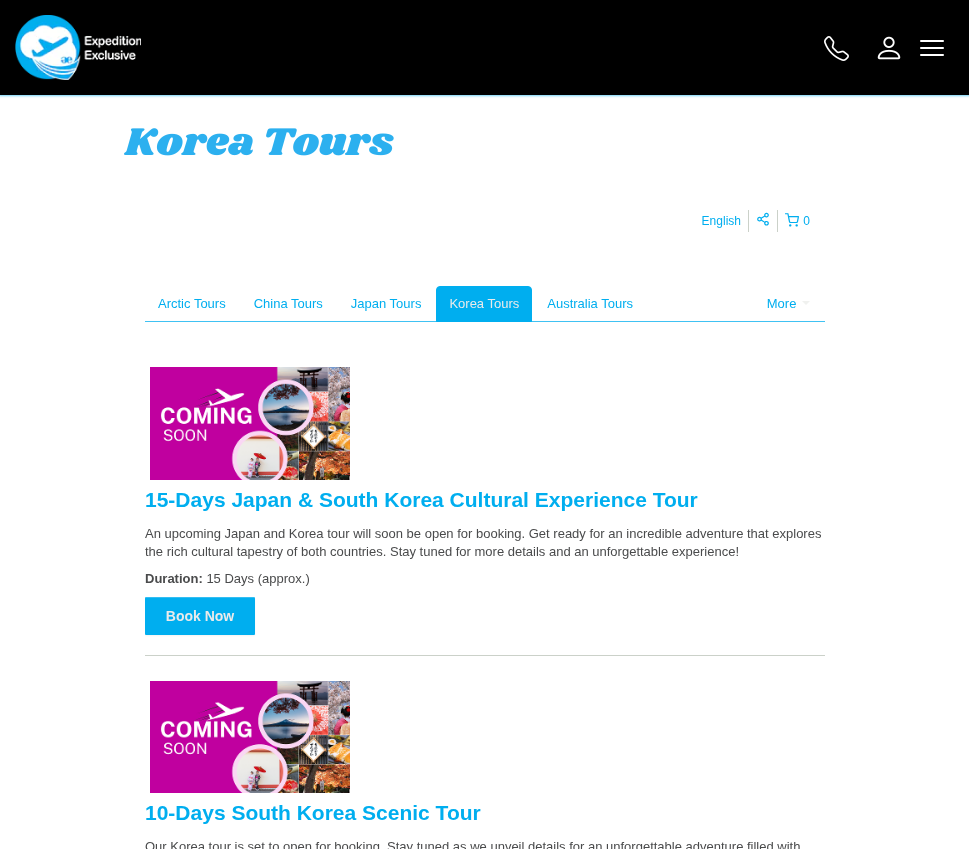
#include <cairo.h>
#include <math.h>
#include <stddef.h>

static cairo_t *c;
static void C(unsigned color){cairo_set_source_rgb(c, (color >> 16) / 255.0, (color >> 8 & 255) / 255.0, (color & 255) / 255.0);}
static void F(const char *family, double size, int italic, int bold){cairo_select_font_face(c, family, italic ? CAIRO_FONT_SLANT_ITALIC : CAIRO_FONT_SLANT_NORMAL,bold ? CAIRO_FONT_WEIGHT_BOLD : CAIRO_FONT_WEIGHT_NORMAL);cairo_set_font_size(c, size);}
static void T(double x, double y, const char *s){cairo_move_to(c, x, y);cairo_show_text(c, s);}
static void R(double x, double y, double w, double h){cairo_rectangle(c, x, y, w, h);cairo_fill(c);}
static void Q(double x, double y, double w, double h, double r){cairo_new_sub_path(c);cairo_arc(c, x + w - r, y + h - r, r, 0, M_PI / 2);cairo_arc(c, x + r, y + h - r, r, M_PI / 2, M_PI);cairo_arc(c, x + r, y + r, r, M_PI, 1.5 * M_PI);cairo_arc(c, x + w - r, y + r, r, 1.5 * M_PI, 2 * M_PI);cairo_close_path(c);}
static void S(double x, double y, double w, double h, double r, double blur, double alpha){cairo_push_group_with_content(c, CAIRO_CONTENT_ALPHA);cairo_set_operator(c, CAIRO_OPERATOR_SOURCE);for (int i = 15; i >= -15 && fmin(w, h) + blur * i / 3 > 0; i -= 2) {double e = blur * i / 6;cairo_set_source_rgba(c, 0, 0, 0, alpha * erfc((i - 1) / 8.5) / 2);Q(x - e, y - e, w + 2 * e, h + 2 * e, fmax(0, fmin(r + e + blur * .6, fmin(w, h) / 2 + e)));cairo_fill(c);}cairo_pattern_t *soft = cairo_pop_group(c);cairo_mask(c, soft);cairo_pattern_destroy(soft);}
static void I(const char *path, double x, double y, double w, double h){cairo_surface_t *image = cairo_image_surface_create_from_png(path);cairo_save(c);cairo_set_source_surface(c, image, x, y);cairo_rectangle(c, x, y, w, h);cairo_fill(c);cairo_restore(c);cairo_surface_destroy(image);}
int main(void) {
cairo_surface_t *surface = cairo_image_surface_create(CAIRO_FORMAT_RGB24, 969, 849);
c = cairo_create(surface);
cairo_font_options_t *options = cairo_font_options_create();
cairo_font_options_set_hint_metrics(options, CAIRO_HINT_METRICS_OFF);
cairo_font_options_set_hint_style(options, CAIRO_HINT_STYLE_NONE);
cairo_set_font_options(c, options);
cairo_set_miter_limit(c, 4);
C(0xffffff);
cairo_paint(c);
C(0x00aeef);
S(0,0,969,95,0,1.5,1);
C(0x000000);
R(0,0,969,95);
I("1.png",15,15,126,65);
I("2.png",824,36,25,25);
I("3.png",877,36,24,24);
C(0xffffff);
Q(920,40,24,2,1);
cairo_fill(c);
Q(920,47,24,2,1);
cairo_fill(c);
Q(920,54,24,2,1);
cairo_fill(c);
F("Shrikhand",40,0,0);
C(0x2cb0ef);
T(125,155,"Korea Tours");
I("4.png",145,210,680,639);
cairo_surface_write_to_png(surface, "o.png");
cairo_font_options_destroy(options);
cairo_destroy(c);
cairo_surface_destroy(surface);
return 0;
}
